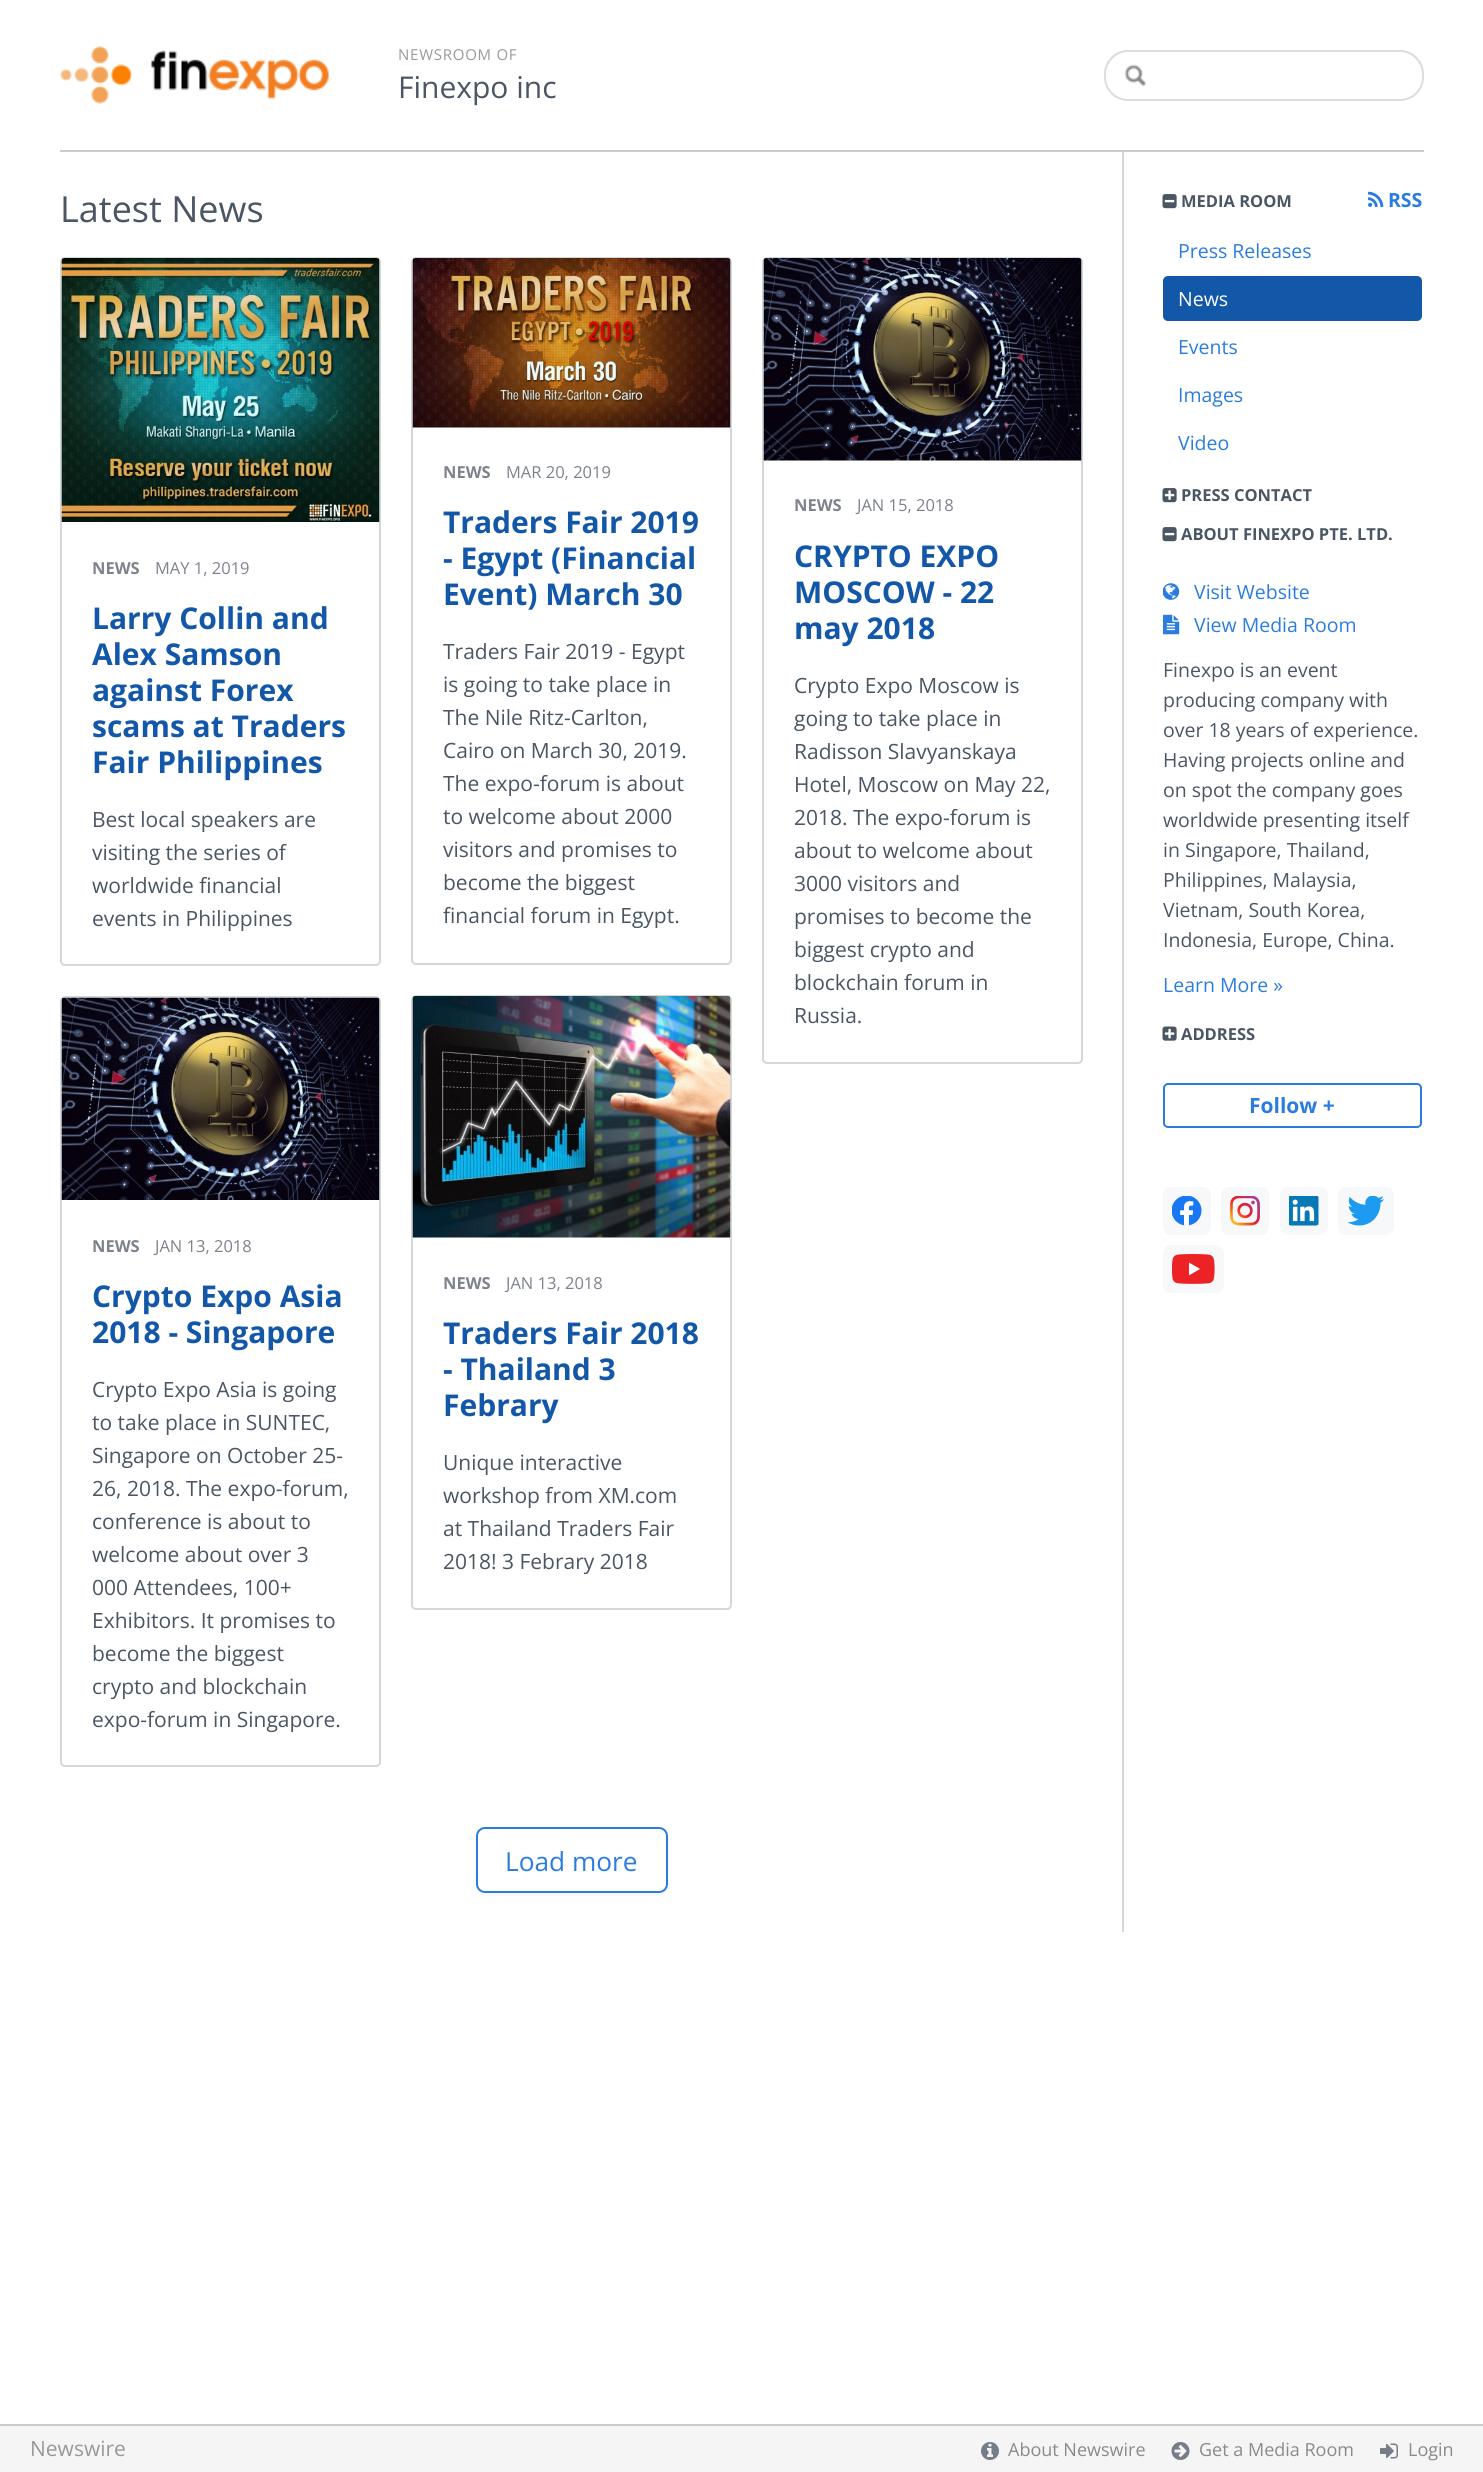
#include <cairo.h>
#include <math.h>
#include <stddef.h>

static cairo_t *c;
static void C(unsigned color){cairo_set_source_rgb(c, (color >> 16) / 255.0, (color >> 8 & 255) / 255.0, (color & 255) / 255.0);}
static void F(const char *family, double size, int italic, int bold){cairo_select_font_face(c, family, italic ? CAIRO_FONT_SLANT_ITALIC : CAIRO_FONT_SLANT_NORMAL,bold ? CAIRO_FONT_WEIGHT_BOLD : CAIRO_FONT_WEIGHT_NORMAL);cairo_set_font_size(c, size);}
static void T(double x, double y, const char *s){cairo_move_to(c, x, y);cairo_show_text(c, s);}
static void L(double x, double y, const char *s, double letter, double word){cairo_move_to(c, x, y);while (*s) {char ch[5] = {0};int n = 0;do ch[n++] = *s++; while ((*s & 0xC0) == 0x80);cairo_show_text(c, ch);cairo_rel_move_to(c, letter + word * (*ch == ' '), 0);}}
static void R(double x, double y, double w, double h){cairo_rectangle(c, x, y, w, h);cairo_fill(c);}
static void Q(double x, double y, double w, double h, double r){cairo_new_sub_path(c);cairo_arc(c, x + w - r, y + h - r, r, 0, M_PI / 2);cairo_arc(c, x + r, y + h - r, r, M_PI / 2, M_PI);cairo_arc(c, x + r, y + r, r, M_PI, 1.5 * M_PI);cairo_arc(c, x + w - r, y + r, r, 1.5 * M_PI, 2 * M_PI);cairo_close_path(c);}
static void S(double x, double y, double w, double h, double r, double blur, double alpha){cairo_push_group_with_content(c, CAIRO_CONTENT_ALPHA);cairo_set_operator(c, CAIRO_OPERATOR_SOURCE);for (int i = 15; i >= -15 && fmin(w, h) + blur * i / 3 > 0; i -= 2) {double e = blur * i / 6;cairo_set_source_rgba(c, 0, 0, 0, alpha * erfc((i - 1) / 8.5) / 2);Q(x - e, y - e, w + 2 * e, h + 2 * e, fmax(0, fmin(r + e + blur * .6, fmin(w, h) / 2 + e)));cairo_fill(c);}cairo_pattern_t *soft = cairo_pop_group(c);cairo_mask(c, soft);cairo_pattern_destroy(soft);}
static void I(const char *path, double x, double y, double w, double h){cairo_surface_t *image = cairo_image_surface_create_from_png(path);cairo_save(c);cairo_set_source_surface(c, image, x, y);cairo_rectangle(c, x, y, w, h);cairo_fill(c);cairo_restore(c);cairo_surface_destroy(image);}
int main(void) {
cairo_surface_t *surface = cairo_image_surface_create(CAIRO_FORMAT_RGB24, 1483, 2472);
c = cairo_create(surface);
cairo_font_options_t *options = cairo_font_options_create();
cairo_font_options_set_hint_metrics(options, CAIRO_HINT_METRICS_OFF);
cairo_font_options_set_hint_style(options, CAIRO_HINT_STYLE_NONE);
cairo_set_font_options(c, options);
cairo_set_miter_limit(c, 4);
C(0xffffff);
cairo_paint(c);
C(0xcccccc);
R(60,150,1364,2);
I("1.png",60,46,270,58);
F("Open Sans",15,0,0);
C(0x999999);
L(398,60,"NEWSROOM OF",.75,0);
F("Open Sans",30,0,0);
C(0x4b5664);
T(398,98,"Finexpo inc");
C(0xececec);
cairo_new_path(c);
cairo_move_to(c,1128,52);
cairo_line_to(c,1400,52);
cairo_curve_to(c,1412,52,1422,63,1422,75);
cairo_line_to(c,1422,74);
cairo_curve_to(c,1422,61,1412,51,1399,51);
cairo_line_to(c,1129,51);
cairo_curve_to(c,1116,51,1106,61,1106,74);
cairo_line_to(c,1106,75);
cairo_curve_to(c,1106,63,1116,52,1128,52);
cairo_close_path(c);
cairo_fill(c);
Q(1105,51,318,49,23);
C(0xdddddd);
cairo_stroke(c);
I("2.png",1125,64,21,22);
C(0xd3d8d9);
R(1122,152,2,1780);
F("Open Sans",36,0,0);
C(0x4b5664);
T(60,222,"Latest News");
Q(61,258,319,707,4);
C(0xd3d8d9);
cairo_stroke(c);
I("3.png",61,258,319,264);
F("Open Sans",16.5,0,1);
C(0x7d828c);
T(92,574,"NEWS");
F("Open Sans",16.5,0,0);
T(155,574,"MAY 1, 2019");
F("Open Sans",30,0,1);
C(0x1357a8);
T(92,629,"Larry Collin and");
T(92,665,"Alex Samson");
T(92,701,"against Forex");
T(92,737,"scams at Traders");
T(92,773,"Fair Philippines");
F("Open Sans",21,0,0);
C(0x4b5664);
T(92,827,"Best local speakers are");
T(92,860,"visiting the series of");
T(92,893,"worldwide financial");
T(92,926,"events in Philippines");
Q(61,997,319,769,4);
C(0xd3d8d9);
cairo_stroke(c);
I("4.png",61,997,319,203);
F("Open Sans",16.5,0,1);
C(0x7d828c);
T(92,1252,"NEWS");
F("Open Sans",16.5,0,0);
T(155,1252,"JAN 13, 2018");
F("Open Sans",30,0,1);
C(0x1357a8);
T(92,1307,"Crypto Expo Asia");
T(92,1343,"2018 - Singapore");
F("Open Sans",21,0,0);
C(0x4b5664);
T(92,1397,"Crypto Expo Asia is going");
T(92,1430,"to take place in SUNTEC,");
T(92,1463,"Singapore on October 25-");
T(92,1496,"26, 2018. The expo-forum,");
T(92,1529,"conference is about to");
T(92,1562,"welcome about over 3");
T(92,1595,"000 Attendees, 100+");
T(92,1628,"Exhibitors. It promises to");
T(92,1661,"become the biggest");
T(92,1694,"crypto and blockchain");
T(92,1727,"expo-forum in Singapore.");
Q(412,258,319,706,4);
C(0xd3d8d9);
cairo_stroke(c);
I("5.png",412,258,319,170);
F("Open Sans",16.5,0,1);
C(0x7d828c);
T(443,478,"NEWS");
F("Open Sans",16.5,0,0);
T(506,478,"MAR 20, 2019");
F("Open Sans",30,0,1);
C(0x1357a8);
T(443,533,"Traders Fair 2019");
T(443,569,"- Egypt (Financial");
T(443,605,"Event) March 30");
F("Open Sans",21,0,0);
C(0x4b5664);
T(443,659,"Traders Fair 2019 - Egypt");
T(443,692,"is going to take place in");
T(443,725,"The Nile Ritz-Carlton,");
T(443,758,"Cairo on March 30, 2019.");
T(443,791,"The expo-forum is about");
T(443,824,"to welcome about 2000");
T(443,857,"visitors and promises to");
T(443,890,"become the biggest");
T(443,923,"financial forum in Egypt.");
Q(412,996,319,613,4);
C(0xd3d8d9);
cairo_stroke(c);
I("6.png",412,996,319,242);
F("Open Sans",16.5,0,1);
C(0x7d828c);
T(443,1289,"NEWS");
F("Open Sans",16.5,0,0);
T(506,1289,"JAN 13, 2018");
F("Open Sans",30,0,1);
C(0x1357a8);
T(443,1344,"Traders Fair 2018");
T(443,1380,"- Thailand 3");
T(443,1416,"Febrary");
F("Open Sans",21,0,0);
C(0x4b5664);
T(443,1470,"Unique interactive");
T(443,1503,"workshop from XM.com");
T(443,1536,"at Thailand Traders Fair");
T(443,1569,"2018! 3 Febrary 2018");
Q(763,258,319,805,4);
C(0xd3d8d9);
cairo_stroke(c);
I("7.png",763,258,319,203);
F("Open Sans",16.5,0,1);
C(0x7d828c);
T(794,511,"NEWS");
F("Open Sans",16.5,0,0);
T(857,511,"JAN 15, 2018");
F("Open Sans",30,0,1);
C(0x1357a8);
T(794,567,"CRYPTO EXPO");
T(794,603,"MOSCOW - 22");
T(794,639,"may 2018");
F("Open Sans",21,0,0);
C(0x4b5664);
T(794,693,"Crypto Expo Moscow is");
T(794,726,"going to take place in");
T(794,759,"Radisson Slavyanskaya");
T(794,792,"Hotel, Moscow on May 22,");
T(794,825,"2018. The expo-forum is");
T(794,858,"about to welcome about");
T(794,891,"3000 visitors and");
T(794,924,"promises to become the");
T(794,957,"biggest crypto and");
T(794,990,"blockchain forum in");
T(794,1023,"Russia.");
cairo_save(c);
cairo_set_fill_rule(c,CAIRO_FILL_RULE_EVEN_ODD);
cairo_new_path(c);
cairo_move_to(c,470,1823);
cairo_line_to(c,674,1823);
cairo_line_to(c,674,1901);
cairo_line_to(c,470,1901);
cairo_close_path(c);
cairo_move_to(c,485,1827);
cairo_line_to(c,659,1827);
cairo_curve_to(c,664,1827,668,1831,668,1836);
cairo_line_to(c,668,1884);
cairo_curve_to(c,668,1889,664,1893,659,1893);
cairo_line_to(c,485,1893);
cairo_curve_to(c,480,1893,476,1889,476,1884);
cairo_line_to(c,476,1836);
cairo_curve_to(c,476,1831,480,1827,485,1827);
cairo_close_path(c);
cairo_clip(c);
C(0x000000);
S(476,1829,192,66,9,1.5,.05);
cairo_restore(c);
Q(477,1828,190,64,8);
C(0x2a7ddf);
cairo_stroke(c);
F("Open Sans",26.25,0,0);
T(505,1871,"Load more");
I("8.png",1162,194,15,15);
F("Open Sans",16.5,0,1);
C(0x4b5664);
T(1181,207,"MEDIA ROOM");
I("9.png",1368,191,16,16);
F("Open Sans",19.5,0,1);
C(0x2a7ddf);
T(1388,207,"RSS");
F("Open Sans",19.5,0,0);
T(1178,258,"Press Releases");
C(0x1357a8);
Q(1163,276,259,45,5);
cairo_fill(c);
C(0xffffff);
T(1178,306,"News");
C(0x2a7ddf);
T(1178,354,"Events");
T(1178,402,"Images");
T(1178,450,"Video");
I("10.png",1162,488,15,15);
F("Open Sans",16.5,0,1);
C(0x4b5664);
T(1181,501,"PRESS CONTACT");
I("8.png",1162,527,15,15);
T(1181,540,"ABOUT FINEXPO PTE. LTD.");
I("11.png",1163,583,17,17);
F("Open Sans",19.5,0,0);
C(0x2a7ddf);
T(1194,599,"Visit Website");
I("12.png",1163,614,17,21);
T(1194,632,"View Media Room");
C(0x4b5664);
T(1163,677,"Finexpo is an event");
T(1163,707,"producing company with");
T(1163,737,"over 18 years of experience.");
T(1163,767,"Having projects online and");
T(1163,797,"on spot the company goes");
T(1163,827,"worldwide presenting itself");
T(1163,857,"in Singapore, Thailand,");
T(1163,887,"Philippines, Malaysia,");
T(1163,917,"Vietnam, South Korea,");
T(1163,947,"Indonesia, Europe, China.");
C(0x2a7ddf);
T(1163,992,"Learn More »");
I("13.png",1162,1026,15,15);
F("Open Sans",16.5,0,1);
C(0x4b5664);
T(1181,1040,"ADDRESS");
Q(1164,1084,257,43,4);
C(0x2a7ddf);
cairo_stroke(c);
F("Open Sans",21,0,1);
T(1249,1113,"Follow +");
C(0xf7f8fa);
Q(1163,1187,48,48,8);
cairo_fill(c);
I("14.png",1172,1196,30,30);
Q(1221,1187,48,48,8);
cairo_fill(c);
I("15.png",1230,1196,30,30);
Q(1280,1187,48,48,8);
cairo_fill(c);
I("16.png",1289,1196,30,30);
Q(1338,1187,56,48,8);
cairo_fill(c);
I("17.png",1347,1196,37,30);
Q(1163,1245,61,48,8);
cairo_fill(c);
I("18.png",1172,1254,43,30);
C(0xf5f5f5);
R(0,2426,1483,46);
C(0xcccccc);
R(0,2424,1483,2);
F("Open Sans",21,0,0);
C(0x999999);
T(30,2456,"Newswire");
I("19.png",981,2442,18,18);
F("Open Sans",18,0,0);
C(0x8a8a8a);
T(1008,2456,"About Newswire");
I("20.png",1171,2442,19,18);
T(1199,2456,"Get a Media Room");
I("21.png",1380,2443,18,16);
T(1408,2456,"Login");
cairo_surface_write_to_png(surface, "o.png");
cairo_font_options_destroy(options);
cairo_destroy(c);
cairo_surface_destroy(surface);
return 0;
}
